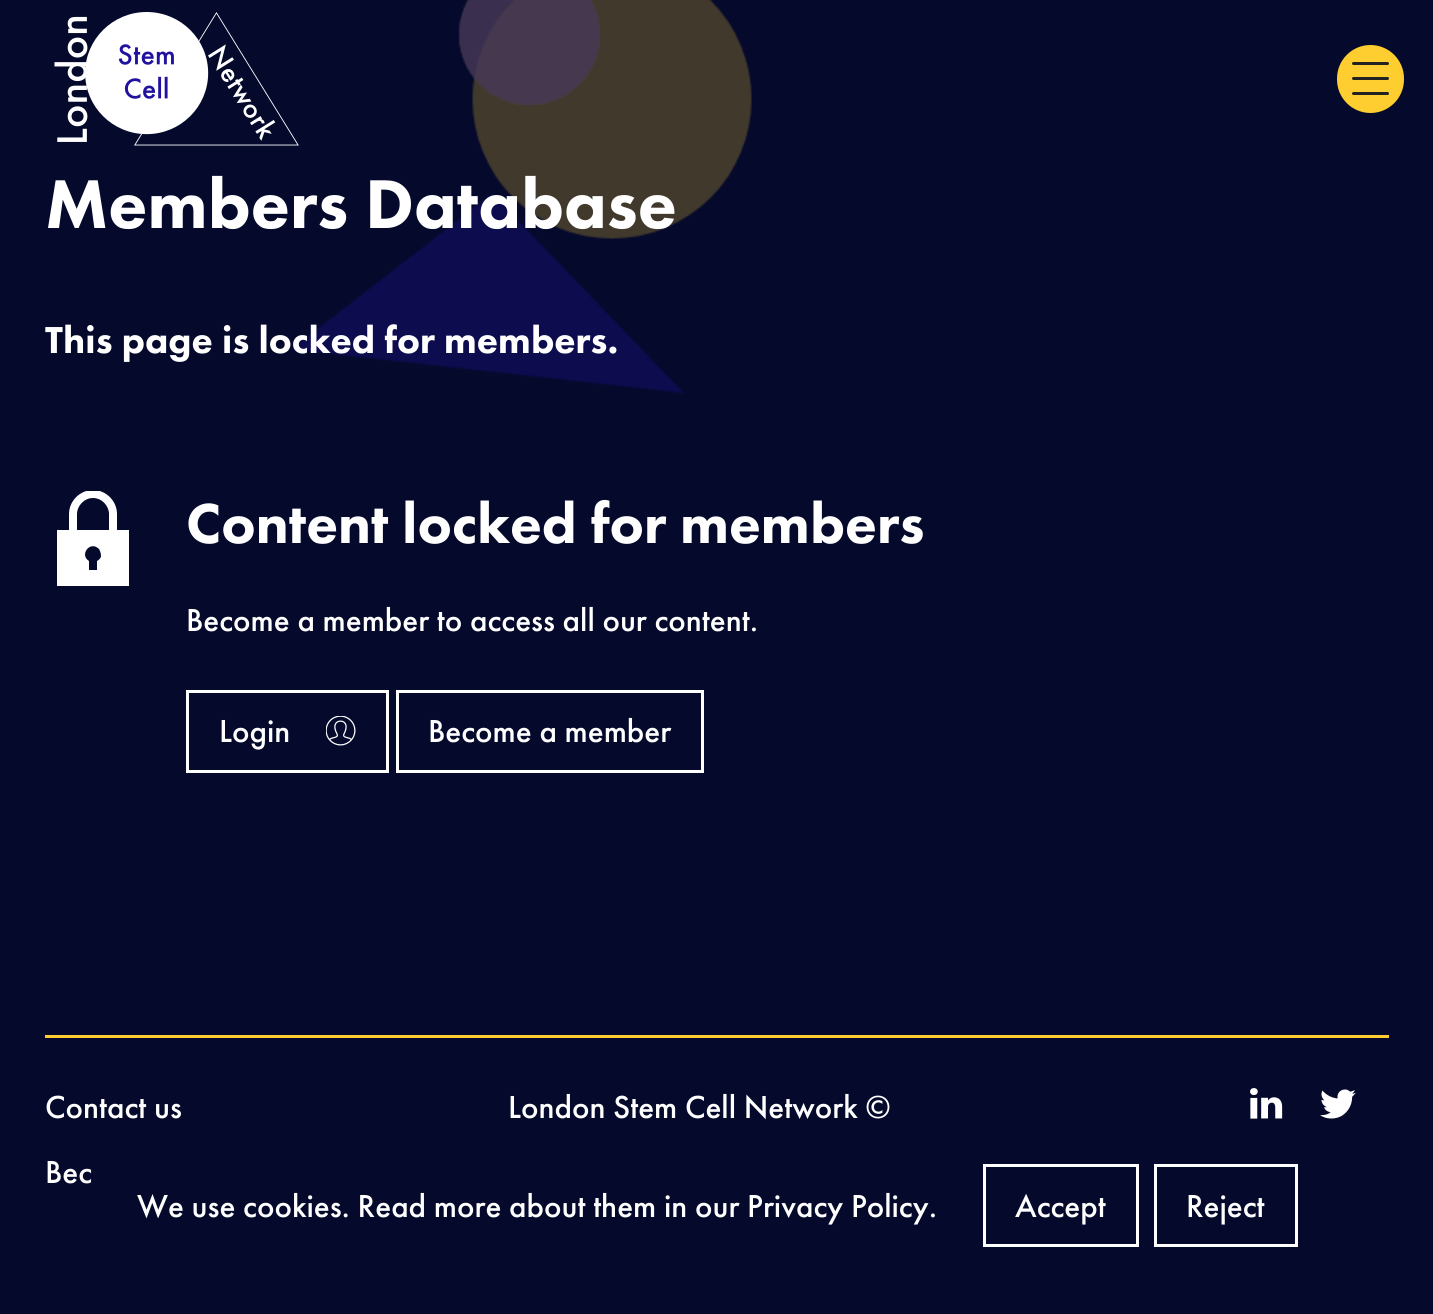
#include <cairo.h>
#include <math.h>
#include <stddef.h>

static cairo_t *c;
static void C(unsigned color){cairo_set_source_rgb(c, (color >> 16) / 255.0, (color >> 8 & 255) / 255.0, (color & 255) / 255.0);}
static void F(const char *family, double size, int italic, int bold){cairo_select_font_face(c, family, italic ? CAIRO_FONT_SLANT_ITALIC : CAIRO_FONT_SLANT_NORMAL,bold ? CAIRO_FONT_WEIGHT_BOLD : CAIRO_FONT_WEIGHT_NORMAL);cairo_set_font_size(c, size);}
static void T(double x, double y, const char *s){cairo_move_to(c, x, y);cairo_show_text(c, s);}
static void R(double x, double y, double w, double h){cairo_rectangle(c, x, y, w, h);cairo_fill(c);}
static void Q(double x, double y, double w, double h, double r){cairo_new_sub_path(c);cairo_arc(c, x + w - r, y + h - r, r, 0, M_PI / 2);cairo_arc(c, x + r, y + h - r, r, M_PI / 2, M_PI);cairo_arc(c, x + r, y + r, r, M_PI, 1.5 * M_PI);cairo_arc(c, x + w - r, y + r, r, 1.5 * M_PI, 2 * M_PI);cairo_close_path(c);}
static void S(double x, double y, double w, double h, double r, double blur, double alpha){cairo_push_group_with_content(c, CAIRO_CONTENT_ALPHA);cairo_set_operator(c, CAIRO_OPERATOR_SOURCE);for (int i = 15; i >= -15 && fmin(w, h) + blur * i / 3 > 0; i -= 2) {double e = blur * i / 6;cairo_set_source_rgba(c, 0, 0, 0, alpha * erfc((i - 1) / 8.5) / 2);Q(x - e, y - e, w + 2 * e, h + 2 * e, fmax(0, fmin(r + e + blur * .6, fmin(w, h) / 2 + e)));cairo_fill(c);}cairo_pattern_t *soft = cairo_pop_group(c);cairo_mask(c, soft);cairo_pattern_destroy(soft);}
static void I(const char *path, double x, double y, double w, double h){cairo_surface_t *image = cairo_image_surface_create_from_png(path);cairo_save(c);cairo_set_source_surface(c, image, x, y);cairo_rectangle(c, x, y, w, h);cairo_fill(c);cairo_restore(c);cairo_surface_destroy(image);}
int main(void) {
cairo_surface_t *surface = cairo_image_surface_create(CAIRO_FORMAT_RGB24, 1433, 1314);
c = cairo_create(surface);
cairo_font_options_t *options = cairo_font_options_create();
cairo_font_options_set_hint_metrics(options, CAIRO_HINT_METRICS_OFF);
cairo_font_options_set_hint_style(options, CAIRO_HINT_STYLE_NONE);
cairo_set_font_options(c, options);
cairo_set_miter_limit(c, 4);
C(0x050a2c);
cairo_paint(c);
I("2.png",291,0,461,394);
I("1.png",54,12,245,134);
C(0xfecd2f);
Q(1338.5,46.5,64,65,32);
cairo_fill_preserve(c);
cairo_set_line_width(c,3);
cairo_stroke(c);
C(0x222222);
Q(1352,62,37,3,1.5);
cairo_fill(c);
Q(1352,77,37,3,1.5);
cairo_fill(c);
Q(1352,92,37,3,1.5);
cairo_fill(c);
F("Futura PT Black",71.5,0,0);
C(0xffffff);
T(45,228,"Members Database");
F("Futura PT Black",38.9,0,0);
T(45,353,"This page is locked for members.");
cairo_save(c);
cairo_rectangle(c,45,491,96,96);
cairo_clip(c);
cairo_new_path(c);
cairo_move_to(c,117,530);
cairo_line_to(c,117,514);
cairo_curve_to(c,117,501,106,490,93,490);
cairo_curve_to(c,80,490,69,501,69,514);
cairo_line_to(c,69,530);
cairo_line_to(c,57,530);
cairo_line_to(c,57,586);
cairo_line_to(c,129,586);
cairo_line_to(c,129,530);
cairo_close_path(c);
cairo_move_to(c,97,561);
cairo_line_to(c,97,570);
cairo_line_to(c,89,570);
cairo_line_to(c,89,561);
cairo_curve_to(c,79,555,90,540,99,549);
cairo_curve_to(c,100,551,101,553,101,556);
cairo_curve_to(c,101,558,99,560,97,561);
cairo_close_path(c);
cairo_move_to(c,77,530);
cairo_line_to(c,77,514);
cairo_curve_to(c,77,506,84,498,93,498);
cairo_curve_to(c,102,498,109,506,109,514);
cairo_line_to(c,109,530);
cairo_close_path(c);
cairo_fill(c);
cairo_restore(c);
F("Futura PT Black",58.25,0,0);
T(186,543,"Content locked for members");
F("Futura PT Medium",33,0,0);
T(186,631,"Become a member to access all our content.");
cairo_rectangle(c,187.5,691.5,200,80);
cairo_stroke(c);
T(219,742,"Login");
I("3.png",326,716,30,30);
cairo_rectangle(c,397.5,691.5,305,80);
cairo_stroke(c);
T(428,742,"Become a member");
C(0xfecd2f);
R(45,1035,1344,3);
C(0xffffff);
T(45,1118,"Contact us");
T(45,1183,"Bec");
T(508,1118,"London Stem Cell Network ©");
I("4.png",1250,1088,33,31);
I("5.png",1320,1089,36,30);
C(0x050a2c);
S(92,1146,1251,128,5,7,.15);
C(0xffffff);
T(137,1217,"We use cookies. Read more about them in our Privacy Policy.");
cairo_rectangle(c,984.5,1165.5,153,80);
cairo_stroke(c);
T(1015,1217,"Accept");
cairo_rectangle(c,1155.5,1165.5,141,80);
cairo_stroke(c);
T(1186,1217,"Reject");
cairo_surface_write_to_png(surface, "o.png");
cairo_font_options_destroy(options);
cairo_destroy(c);
cairo_surface_destroy(surface);
return 0;
}
